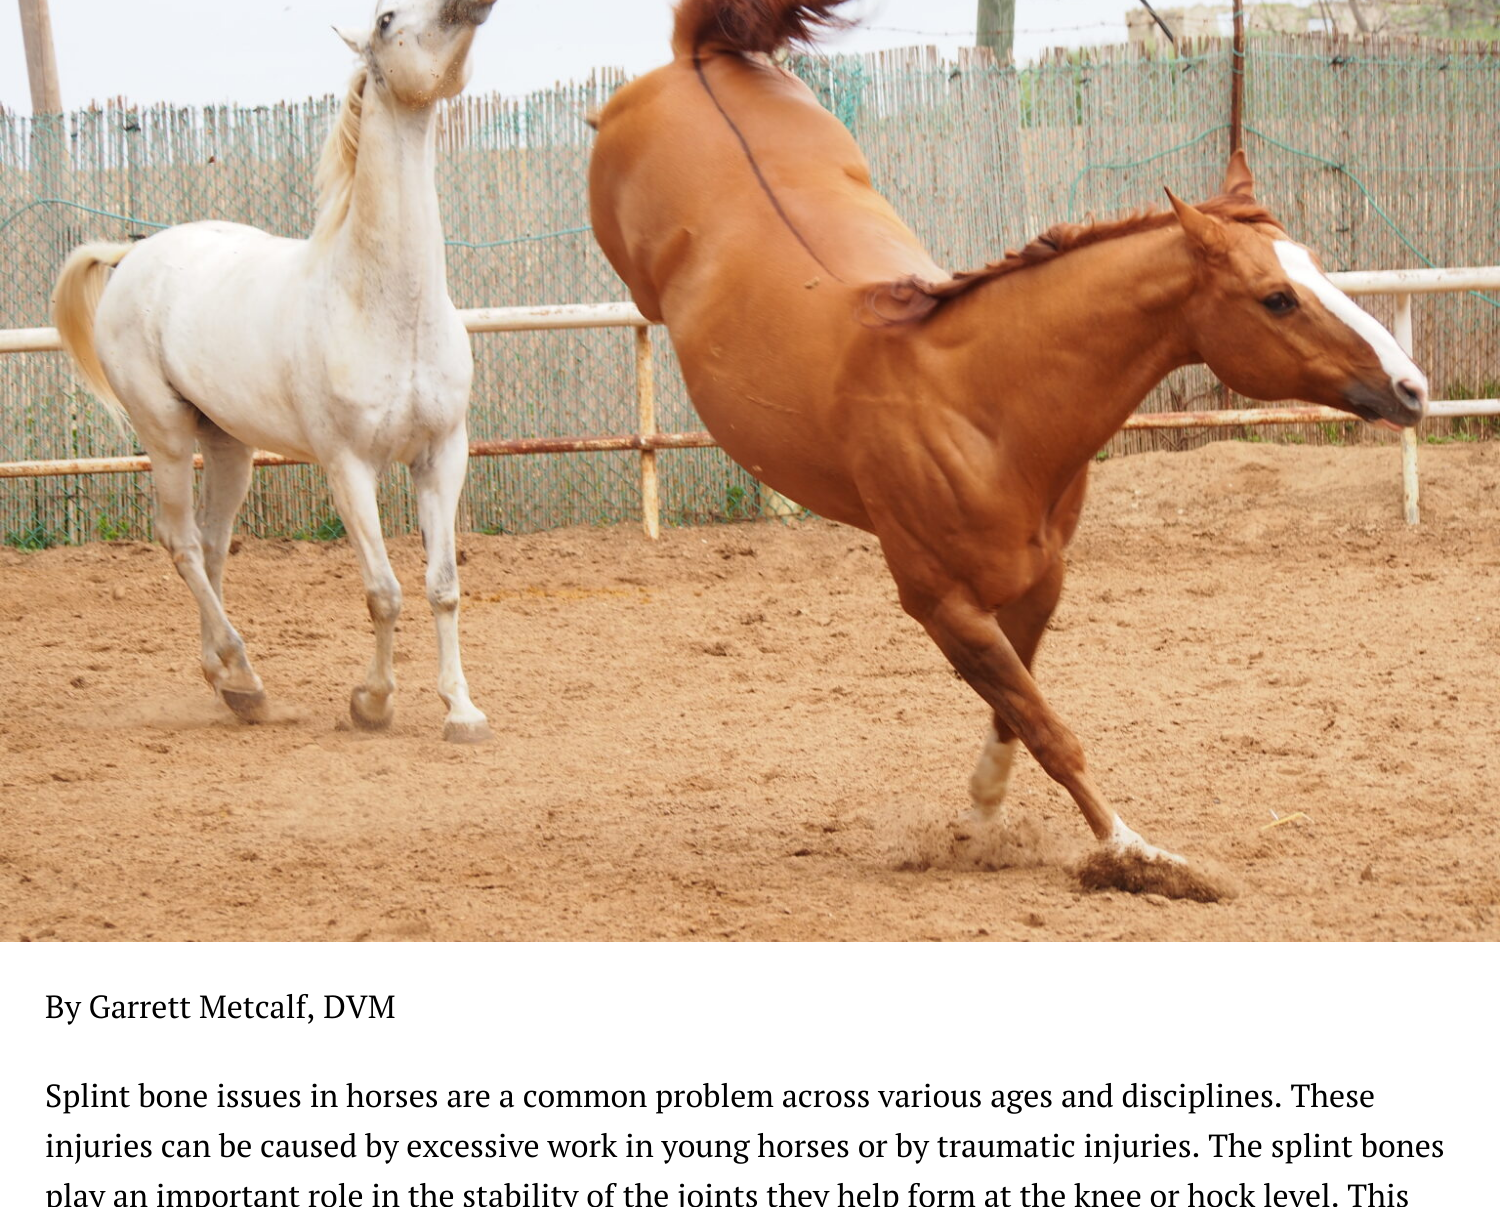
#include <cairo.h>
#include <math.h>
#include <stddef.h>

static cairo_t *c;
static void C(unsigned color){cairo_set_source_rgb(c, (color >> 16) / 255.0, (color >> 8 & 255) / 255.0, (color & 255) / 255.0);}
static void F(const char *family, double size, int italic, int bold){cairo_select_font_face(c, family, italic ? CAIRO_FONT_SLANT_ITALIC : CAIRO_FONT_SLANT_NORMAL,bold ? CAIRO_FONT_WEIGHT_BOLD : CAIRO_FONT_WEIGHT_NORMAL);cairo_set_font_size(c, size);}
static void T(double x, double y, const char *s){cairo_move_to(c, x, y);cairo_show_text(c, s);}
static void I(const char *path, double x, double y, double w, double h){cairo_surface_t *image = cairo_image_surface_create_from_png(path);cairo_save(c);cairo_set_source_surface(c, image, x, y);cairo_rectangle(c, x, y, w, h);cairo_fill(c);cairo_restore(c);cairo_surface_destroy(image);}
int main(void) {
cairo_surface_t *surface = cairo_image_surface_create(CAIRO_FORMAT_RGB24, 1500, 1207);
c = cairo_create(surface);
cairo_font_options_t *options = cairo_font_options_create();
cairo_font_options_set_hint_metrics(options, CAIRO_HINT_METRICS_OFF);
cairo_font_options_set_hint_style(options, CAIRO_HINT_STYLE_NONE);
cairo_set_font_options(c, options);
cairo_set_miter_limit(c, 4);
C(0xffffff);
cairo_paint(c);
I("1.png",0,0,1500,942);
F("PT Serif",32,0,0);
C(0x000000);
T(45,1018,"By Garrett Metcalf, DVM");
T(45,1107,"Splint bone issues in horses are a common problem across various ages and disciplines. These");
T(45,1157,"injuries can be caused by excessive work in young horses or by traumatic injuries. The splint bones");
T(45,1207,"play an important role in the stability of the joints they help form at the knee or hock level. This");
cairo_surface_write_to_png(surface, "o.png");
cairo_font_options_destroy(options);
cairo_destroy(c);
cairo_surface_destroy(surface);
return 0;
}
